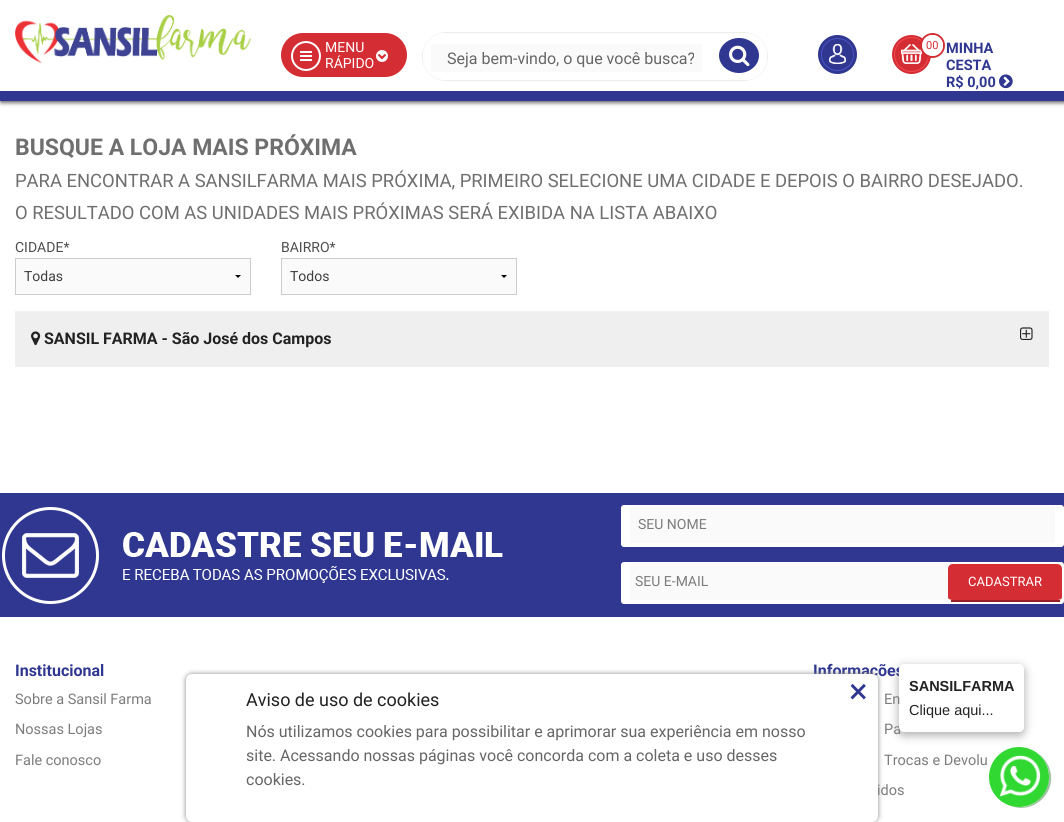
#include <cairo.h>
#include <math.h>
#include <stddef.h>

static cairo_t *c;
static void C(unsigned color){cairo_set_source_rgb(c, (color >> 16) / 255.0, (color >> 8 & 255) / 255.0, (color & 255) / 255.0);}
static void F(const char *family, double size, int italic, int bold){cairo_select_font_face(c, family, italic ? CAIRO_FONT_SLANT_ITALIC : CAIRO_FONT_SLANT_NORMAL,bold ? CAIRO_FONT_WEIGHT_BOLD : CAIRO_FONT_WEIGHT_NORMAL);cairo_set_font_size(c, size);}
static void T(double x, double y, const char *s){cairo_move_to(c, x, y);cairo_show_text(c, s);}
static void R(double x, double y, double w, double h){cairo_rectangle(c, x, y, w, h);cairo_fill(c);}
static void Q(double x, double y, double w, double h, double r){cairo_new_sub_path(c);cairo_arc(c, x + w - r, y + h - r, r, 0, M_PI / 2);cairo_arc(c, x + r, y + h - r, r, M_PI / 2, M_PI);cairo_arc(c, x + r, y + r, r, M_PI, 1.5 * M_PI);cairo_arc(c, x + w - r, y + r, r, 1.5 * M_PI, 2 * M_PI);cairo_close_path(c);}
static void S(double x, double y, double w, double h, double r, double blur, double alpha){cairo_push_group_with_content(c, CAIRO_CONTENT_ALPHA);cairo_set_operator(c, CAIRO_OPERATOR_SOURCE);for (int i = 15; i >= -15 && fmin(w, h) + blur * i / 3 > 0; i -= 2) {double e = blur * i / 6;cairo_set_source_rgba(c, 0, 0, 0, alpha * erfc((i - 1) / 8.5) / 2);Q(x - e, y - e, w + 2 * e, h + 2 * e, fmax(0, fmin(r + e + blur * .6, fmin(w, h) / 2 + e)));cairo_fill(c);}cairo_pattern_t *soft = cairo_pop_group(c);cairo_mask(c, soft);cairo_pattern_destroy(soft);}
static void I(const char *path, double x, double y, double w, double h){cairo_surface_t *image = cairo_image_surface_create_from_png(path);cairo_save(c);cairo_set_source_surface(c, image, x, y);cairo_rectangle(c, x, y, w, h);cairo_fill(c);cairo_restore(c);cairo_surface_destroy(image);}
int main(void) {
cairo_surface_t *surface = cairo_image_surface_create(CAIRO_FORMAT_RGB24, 1064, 822);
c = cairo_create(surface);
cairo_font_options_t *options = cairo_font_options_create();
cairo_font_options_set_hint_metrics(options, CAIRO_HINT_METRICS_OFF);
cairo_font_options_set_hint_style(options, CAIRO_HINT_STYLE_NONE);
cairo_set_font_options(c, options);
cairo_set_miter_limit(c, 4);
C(0xffffff);
cairo_paint(c);
C(0x333333);
S(1,1,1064,101,0,2.5,1);
C(0xffffff);
R(0,0,1064,91);
C(0x2f3790);
R(0,91,1064,10);
I("1.png",15,15,236,49);
C(0xd52d34);
Q(281,33,126,44,22);
cairo_fill(c);
cairo_arc(c,306,56,14,0,2 * M_PI);
C(0xffffff);
cairo_stroke(c);
I("2.png",300,51,12,10);
F("Roboto",14,0,0);
T(325,52,"MENU");
T(325,68,"RÁPIDO");
I("3.png",376,50,12,12);
Q(422.5,32.5,345,48,24);
C(0xededed);
cairo_set_line_width(c,1);
cairo_stroke(c);
C(0xffffff);
Q(423,33,344,47,22);
cairo_fill(c);
C(0xfafafa);
R(431,44,271,28);
F("Roboto",16,0,0);
C(0x666666);
T(447,64,"Seja bem-vindo, o que você busca?");
C(0x2f3790);
cairo_new_path(c);
cairo_move_to(c,739,38);
cairo_curve_to(c,750,38,759,46,759,55.5);
cairo_curve_to(c,759,65,750,73,739,73);
cairo_curve_to(c,728,73,719,65,719,55.5);
cairo_curve_to(c,719,46,728,38,739,38);
cairo_close_path(c);
cairo_fill(c);
I("4.png",729,45,21,22);
I("5.png",818,35,39,39);
I("6.png",892,35,39,39);
cairo_arc(c,932.5,45.5,11.5,0,2 * M_PI);
C(0xd52d34);
cairo_set_line_width(c,2);
cairo_stroke(c);
C(0xffffff);
cairo_arc(c,932.5,45.5,10,0,2 * M_PI);
cairo_fill_preserve(c);
cairo_set_line_width(c,1);
cairo_stroke(c);
F("Roboto",11,0,0);
C(0xd52d34);
T(926,49,"00");
F("Roboto",14.5,0,1);
C(0x2f3790);
T(946,53,"MINHA");
T(946,70,"CESTA");
T(946,87,"R$ 0,00");
I("7.png",999,74,14,15);
C(0x000000);
S(899,667,125,68,5,5,.34);
F("Roboto",16,0,1);
C(0x2f3790);
T(813,676,"Informações");
F("Roboto",14.5,0,0);
C(0x7c7c7c);
T(884,734,"Pa");
C(0xffffff);
Q(899,664,125,68,5);
cairo_fill(c);
F("Liberation Sans",14.5,0,1);
C(0x222222);
T(909,691,"SANSILFARMA");
F("Liberation Sans",14.5,0,0);
T(909,715,"Clique aqui...");
C(0xa1c2a1);
cairo_new_path(c);
cairo_move_to(c,1007,804);
cairo_curve_to(c,1031,818,1061,792,1048,765);
cairo_curve_to(c,1045,759,1040,754,1033,751);
cairo_curve_to(c,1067,769,1041,820,1007,804);
cairo_close_path(c);
cairo_fill(c);
C(0x31d831);
cairo_arc(c,1019,777,30,0,2 * M_PI);
cairo_fill(c);
I("8.png",999,755,42,42);
F("Roboto",23,0,1);
C(0x6f6f6f);
T(15,155,"BUSQUE A LOJA MAIS PRÓXIMA");
F("Roboto",18.4,0,0);
T(15,187,"PARA ENCONTRAR A SANSILFARMA MAIS PRÓXIMA, PRIMEIRO SELECIONE UMA CIDADE E DEPOIS O BAIRRO DESEJADO.");
T(15,219,"O RESULTADO COM AS UNIDADES MAIS PRÓXIMAS SERÁ EXIBIDA NA LISTA ABAIXO");
F("Roboto",14,0,0);
C(0x4d4d4d);
T(15,252,"CIDADE*");
C(0xfafafa);
R(16,259,234,35);
C(0x000000);
cairo_new_path(c);
cairo_move_to(c,241,275);
cairo_line_to(c,238,278);
cairo_line_to(c,235,275);
cairo_close_path(c);
cairo_fill(c);
cairo_rectangle(c,15.5,258.5,235,36);
C(0xcccccc);
cairo_stroke(c);
C(0x3f3f3f);
T(24,281,"Todas");
C(0x4d4d4d);
T(281,252,"BAIRRO*");
C(0xfafafa);
R(282,259,234,35);
C(0x000000);
cairo_new_path(c);
cairo_move_to(c,507,275);
cairo_line_to(c,504,278);
cairo_line_to(c,501,275);
cairo_close_path(c);
cairo_fill(c);
cairo_rectangle(c,281.5,258.5,235,36);
C(0xcccccc);
cairo_stroke(c);
C(0x3f3f3f);
T(290,281,"Todos");
C(0xefefef);
R(15,311,1034,56);
I("9.png",31,331,10,15);
F("Roboto",16,0,1);
C(0x222222);
T(44,344,"SANSIL FARMA - São José dos Campos");
I("10.png",1020,327,13,13);
C(0x2f3790);
R(0,493,1064,124);
I("11.png",2,507,501,97);
C(0xffffff);
Q(621.5,505.5,442,41,2.5);
cairo_fill_preserve(c);
cairo_stroke(c);
C(0xfafafa);
R(630,506,425,37);
F("Roboto",14,0,0);
C(0x7c7c7c);
T(638,529,"SEU NOME");
C(0xffffff);
Q(621.5,562.5,442,41,2.5);
cairo_fill_preserve(c);
cairo_stroke(c);
C(0xfafafa);
R(630,563,425,37);
C(0x7c7c7c);
T(635,586,"SEU E-MAIL");
C(0xd52d34);
cairo_new_path(c);
cairo_move_to(c,953,564);
cairo_line_to(c,1057,564);
cairo_curve_to(c,1060,564,1062,566,1062,569);
cairo_line_to(c,1062,597);
cairo_curve_to(c,1062,599,1060,600,1057,600);
cairo_line_to(c,953,600);
cairo_curve_to(c,950,600,948,599,948,597);
cairo_line_to(c,948,569);
cairo_curve_to(c,948,566,950,564,953,564);
cairo_close_path(c);
cairo_fill(c);
C(0x971e23);
R(951,600,109,2);
F("Roboto",13,0,0);
C(0xffffff);
T(968,586,"CADASTRAR");
F("Roboto",16,0,1);
C(0x2f3790);
T(15,676,"Institucional");
F("Roboto",14.5,0,0);
C(0x7c7c7c);
T(15,704,"Sobre a Sansil Farma");
T(15,734,"Nossas Lojas");
T(15,765,"Fale conosco");
T(884,704,"En");
T(884,765,"Trocas e Devolu");
T(877,795,"idos");
C(0x828282);
S(186,674,692,148,6,2.5,1);
C(0xffffff);
Q(186,674,692,148,6);
cairo_fill(c);
F("Roboto",18,0,0);
C(0x222222);
T(246,706,"Aviso de uso de cookies");
F("Roboto",35,0,0);
C(0x2f3790);
T(849,703,"×");
F("Roboto",16,0,0);
C(0x666666);
T(246,737,"Nós utilizamos cookies para possibilitar e aprimorar sua experiência em nosso");
T(246,761,"site. Acessando nossas páginas você concorda com a coleta e uso desses");
T(246,785,"cookies.");
cairo_surface_write_to_png(surface, "o.png");
cairo_font_options_destroy(options);
cairo_destroy(c);
cairo_surface_destroy(surface);
return 0;
}
